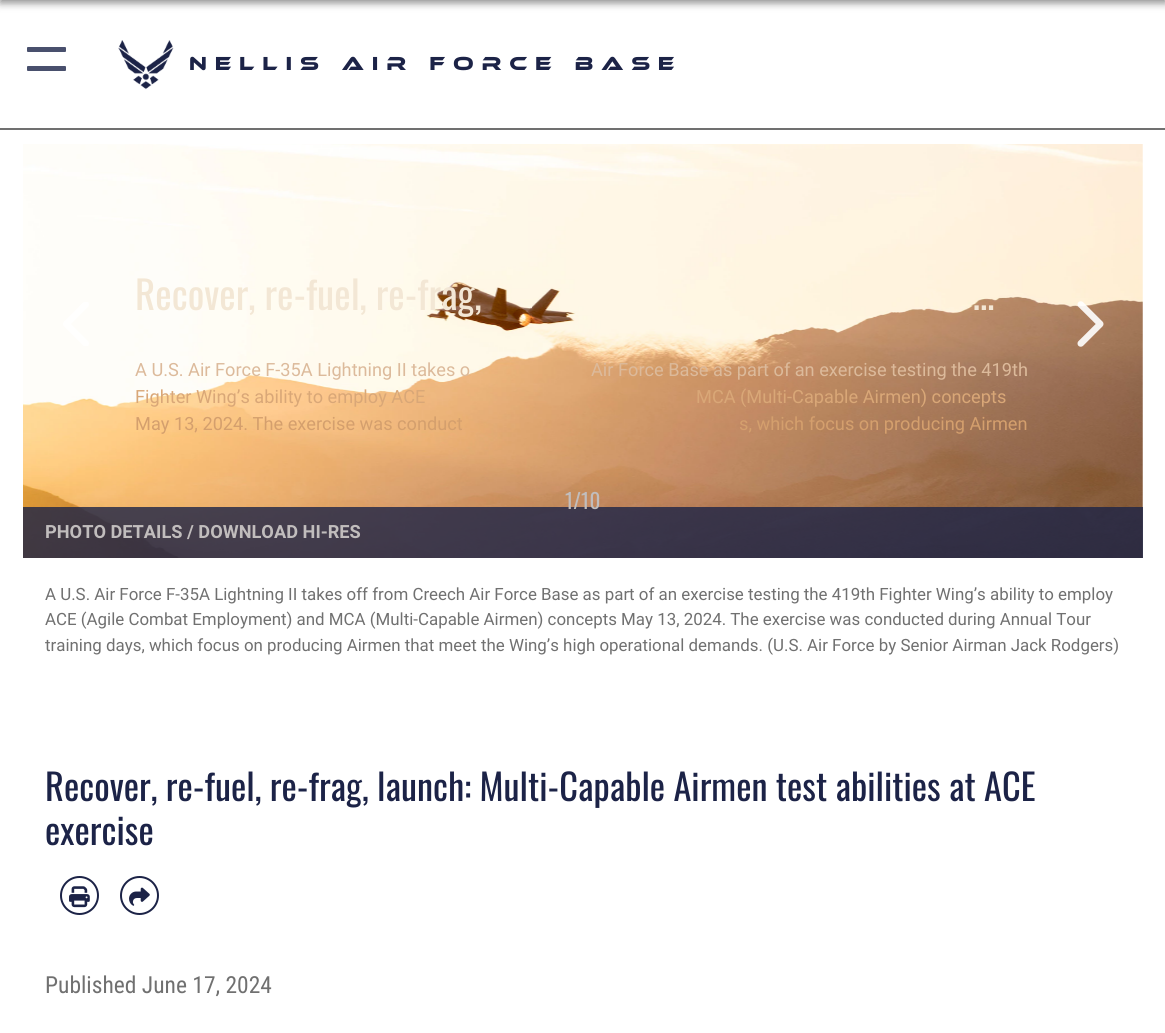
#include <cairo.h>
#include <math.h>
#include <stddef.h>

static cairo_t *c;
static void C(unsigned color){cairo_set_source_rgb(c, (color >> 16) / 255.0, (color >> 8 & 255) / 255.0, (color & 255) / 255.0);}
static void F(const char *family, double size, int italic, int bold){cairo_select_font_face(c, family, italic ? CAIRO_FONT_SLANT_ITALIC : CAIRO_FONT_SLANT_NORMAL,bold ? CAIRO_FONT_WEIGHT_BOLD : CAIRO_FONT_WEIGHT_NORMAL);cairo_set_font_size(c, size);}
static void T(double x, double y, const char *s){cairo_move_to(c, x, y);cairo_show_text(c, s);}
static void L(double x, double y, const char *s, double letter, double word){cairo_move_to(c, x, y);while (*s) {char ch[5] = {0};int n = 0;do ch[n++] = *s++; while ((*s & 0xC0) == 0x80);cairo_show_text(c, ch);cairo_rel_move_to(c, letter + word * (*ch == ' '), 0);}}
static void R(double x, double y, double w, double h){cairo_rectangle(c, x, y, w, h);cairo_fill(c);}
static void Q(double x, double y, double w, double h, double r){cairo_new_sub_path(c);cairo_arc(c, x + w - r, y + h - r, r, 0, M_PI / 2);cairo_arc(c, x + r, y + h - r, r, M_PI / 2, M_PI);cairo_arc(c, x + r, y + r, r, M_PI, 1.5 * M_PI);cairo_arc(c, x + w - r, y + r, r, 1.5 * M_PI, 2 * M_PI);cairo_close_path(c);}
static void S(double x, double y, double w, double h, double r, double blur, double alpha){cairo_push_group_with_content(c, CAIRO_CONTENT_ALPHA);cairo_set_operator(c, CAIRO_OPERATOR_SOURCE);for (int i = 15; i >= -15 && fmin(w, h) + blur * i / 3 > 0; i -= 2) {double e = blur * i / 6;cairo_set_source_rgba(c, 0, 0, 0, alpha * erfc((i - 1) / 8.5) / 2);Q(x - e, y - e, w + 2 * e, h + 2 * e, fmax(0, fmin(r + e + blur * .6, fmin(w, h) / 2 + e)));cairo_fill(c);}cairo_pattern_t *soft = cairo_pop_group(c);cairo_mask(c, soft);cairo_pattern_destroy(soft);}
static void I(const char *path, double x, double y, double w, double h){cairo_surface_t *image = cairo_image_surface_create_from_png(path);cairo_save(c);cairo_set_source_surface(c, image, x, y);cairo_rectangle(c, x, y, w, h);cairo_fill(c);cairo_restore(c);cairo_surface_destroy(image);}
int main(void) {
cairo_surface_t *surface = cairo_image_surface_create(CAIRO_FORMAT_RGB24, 1165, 1033);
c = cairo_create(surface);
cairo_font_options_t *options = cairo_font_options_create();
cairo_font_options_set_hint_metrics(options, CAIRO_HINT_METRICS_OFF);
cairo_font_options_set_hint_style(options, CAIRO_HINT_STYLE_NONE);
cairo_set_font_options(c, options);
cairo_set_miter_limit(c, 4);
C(0xffffff);
cairo_paint(c);
C(0x1a1a1a);
S(0,-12,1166,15,0,4,.5);
C(0x707070);
R(0,128,1165,2);
C(0x49506d);
Q(27,47,39,5,1);
cairo_fill(c);
Q(27,66,39,5,1);
cairo_fill(c);
I("1.png",118,40,56,50);
F("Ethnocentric",19.5,0,0);
C(0x1c2347);
L(189,70,"Nellis Air Force Base",7.8,0);
I("2.png",23,144,1120,414);
F("Oswald",39,0,0);
C(0xf3e7d5);
T(135,310,"Recover, re-fuel, re-frag,");
T(973,310,"…");
F("Roboto",18.2,0,0);
C(0xdcba9b);
T(135,376,"A U.S. Air Force F-35A Lightning II takes o");
T(591,376,"Air Force Base as part of an exercise testing the 419th");
C(0xd9a777);
T(135,403,"Fighter Wing’s ability to employ ACE");
T(696,403,"MCA (Multi-Capable Airmen) concepts");
C(0xd49f6d);
T(135,430,"May 13, 2024. The exercise was conduct");
T(739,430,"s, which focus on producing Airmen");
cairo_set_source_rgba(c,0.11,0.137,0.278,0.8);
R(23,507,1120,51);
F("Roboto",18.2,0,1);
C(0xc1bdbd);
T(45,538,"PHOTO DETAILS");
T(187,538,"/ DOWNLOAD HI-RES");
I("3.png",63,302,26,44);
I("4.png",1077,301,27,46);
F("Oswald",21,0,0);
T(565,509,"1/10");
F("Roboto",16.9,0,0);
C(0x707070);
T(45,600,"A U.S. Air Force F-35A Lightning II takes off from Creech Air Force Base as part of an exercise testing the 419th Fighter Wing’s ability to employ");
T(45,625,"ACE (Agile Combat Employment) and MCA (Multi-Capable Airmen) concepts May 13, 2024. The exercise was conducted during Annual Tour");
T(45,651,"training days, which focus on producing Airmen that meet the Wing’s high operational demands. (U.S. Air Force by Senior Airman Jack Rodgers)");
F("Oswald",36.4,0,0);
C(0x1c2347);
T(45,801,"Recover, re-fuel, re-frag, launch: Multi-Capable Airmen test abilities at ACE");
T(45,845,"exercise");
cairo_new_path(c);
cairo_arc(c,79.5,895.5,18.5,0,2 * M_PI);
cairo_stroke(c);
I("5.png",69,886,21,22);
cairo_arc(c,139.5,895.5,18.5,0,2 * M_PI);
cairo_stroke(c);
I("6.png",129,887,21,19);
F("Roboto Condensed",23.5,0,0);
C(0x707070);
T(45,993,"Published June 17, 2024");
cairo_surface_write_to_png(surface, "o.png");
cairo_font_options_destroy(options);
cairo_destroy(c);
cairo_surface_destroy(surface);
return 0;
}
